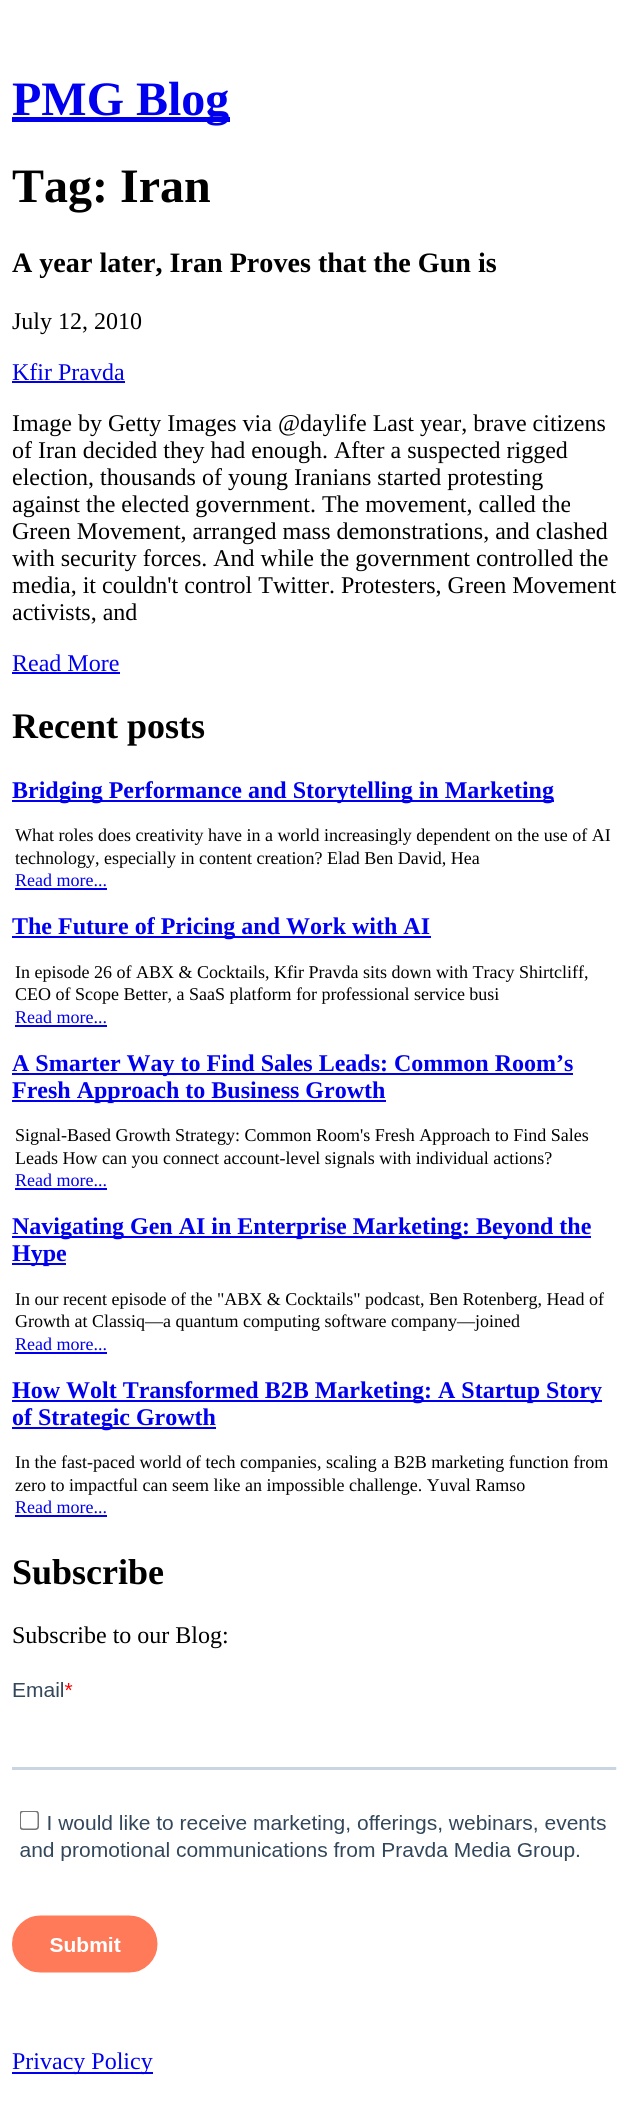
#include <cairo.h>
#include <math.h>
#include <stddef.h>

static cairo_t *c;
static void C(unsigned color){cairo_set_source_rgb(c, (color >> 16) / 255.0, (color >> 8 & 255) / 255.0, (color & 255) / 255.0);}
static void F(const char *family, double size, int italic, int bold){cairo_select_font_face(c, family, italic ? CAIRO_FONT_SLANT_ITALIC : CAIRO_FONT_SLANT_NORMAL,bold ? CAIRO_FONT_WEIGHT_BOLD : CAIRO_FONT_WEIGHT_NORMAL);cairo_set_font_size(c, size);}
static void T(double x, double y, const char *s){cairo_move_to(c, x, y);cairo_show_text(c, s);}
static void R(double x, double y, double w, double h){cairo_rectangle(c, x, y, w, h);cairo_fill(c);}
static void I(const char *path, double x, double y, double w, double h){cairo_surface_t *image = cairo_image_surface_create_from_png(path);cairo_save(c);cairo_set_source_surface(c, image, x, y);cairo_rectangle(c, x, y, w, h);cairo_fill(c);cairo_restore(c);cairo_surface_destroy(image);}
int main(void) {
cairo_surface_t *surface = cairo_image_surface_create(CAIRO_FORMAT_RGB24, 628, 2124);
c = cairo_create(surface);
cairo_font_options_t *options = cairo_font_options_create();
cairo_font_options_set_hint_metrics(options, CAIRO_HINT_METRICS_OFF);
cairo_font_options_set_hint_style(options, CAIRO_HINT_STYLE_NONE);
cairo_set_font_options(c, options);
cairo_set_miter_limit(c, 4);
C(0xffffff);
cairo_paint(c);
C(0x0000ee);
R(12,117,218,5);
F("Liberation Serif",48,0,1);
T(12,115,"PMG Blog");
C(0x000000);
T(12,202,"Tag: Iran");
F("Liberation Serif",28.1,0,1);
T(12,272,"A year later, Iran Proves that the Gun is");
F("Liberation Serif",24,0,0);
T(12,329,"July 12, 2010");
C(0x0000ee);
T(12,380,"Kfir Pravda");
R(12,381,113,2);
C(0x000000);
T(12,431,"Image by Getty Images via @daylife Last year, brave citizens");
T(12,458,"of Iran decided they had enough. After a suspected rigged");
T(12,485,"election, thousands of young Iranians started protesting");
T(12,512,"against the elected government. The movement, called the");
T(12,539,"Green Movement, arranged mass demonstrations, and clashed");
T(12,566,"with security forces. And while the government controlled the");
T(12,593,"media, it couldn't control Twitter. Protesters, Green Movement");
T(12,620,"activists, and");
C(0x0000ee);
T(12,671,"Read More");
R(12,672,108,2);
F("Liberation Serif",36,0,1);
C(0x000000);
T(12,738,"Recent posts");
C(0x0000ee);
R(12,800,542,2);
F("Liberation Serif",24,0,1);
T(12,798,"Bridging Performance and Storytelling in Marketing");
F("Liberation Serif",18,0,0);
C(0x000000);
T(15,841,"What roles does creativity have in a world increasingly dependent on the use of AI");
T(15,864,"technology, especially in content creation? Elad Ben David, Hea");
C(0x0000ee);
T(15,886,"Read more...");
R(15,888,92,2);
R(12,936,419,2);
F("Liberation Serif",24,0,1);
T(12,934,"The Future of Pricing and Work with AI");
F("Liberation Serif",18,0,0);
C(0x000000);
T(15,978,"In episode 26 of ABX & Cocktails, Kfir Pravda sits down with Tracy Shirtcliff,");
T(15,1000,"CEO of Scope Better, a SaaS platform for professional service busi");
C(0x0000ee);
T(15,1023,"Read more...");
R(15,1025,92,2);
R(12,1073,561,2);
F("Liberation Serif",24,0,1);
T(12,1071,"A Smarter Way to Find Sales Leads: Common Room’s");
R(12,1100,374,2);
T(12,1098,"Fresh Approach to Business Growth");
F("Liberation Serif",18,0,0);
C(0x000000);
T(15,1141,"Signal-Based Growth Strategy: Common Room's Fresh Approach to Find Sales");
T(15,1164,"Leads How can you connect account-level signals with individual actions?");
C(0x0000ee);
T(15,1186,"Read more...");
R(15,1188,92,2);
R(12,1236,579,2);
F("Liberation Serif",24,0,1);
T(12,1234,"Navigating Gen AI in Enterprise Marketing: Beyond the");
R(12,1263,54,2);
T(12,1261,"Hype");
F("Liberation Serif",18,0,0);
C(0x000000);
T(15,1305,"In our recent episode of the \"ABX & Cocktails\" podcast, Ben Rotenberg, Head of");
T(15,1327,"Growth at Classiq—a quantum computing software company—joined");
C(0x0000ee);
T(15,1350,"Read more...");
R(15,1352,92,2);
R(12,1400,590,2);
F("Liberation Serif",24,0,1);
T(12,1398,"How Wolt Transformed B2B Marketing: A Startup Story");
R(12,1427,204,2);
T(12,1425,"of Strategic Growth");
F("Liberation Serif",18,0,0);
C(0x000000);
T(15,1468,"In the fast-paced world of tech companies, scaling a B2B marketing function from");
T(15,1491,"zero to impactful can seem like an impossible challenge. Yuval Ramso");
C(0x0000ee);
T(15,1513,"Read more...");
R(15,1515,92,2);
F("Liberation Serif",36,0,1);
C(0x000000);
T(12,1584,"Subscribe");
F("Liberation Serif",24,0,0);
T(12,1643,"Subscribe to our Blog:");
I("1.png",12,1682,605,291);
C(0x0000ee);
R(12,2072,141,2);
T(12,2069,"Privacy Policy");
cairo_surface_write_to_png(surface, "o.png");
cairo_font_options_destroy(options);
cairo_destroy(c);
cairo_surface_destroy(surface);
return 0;
}
